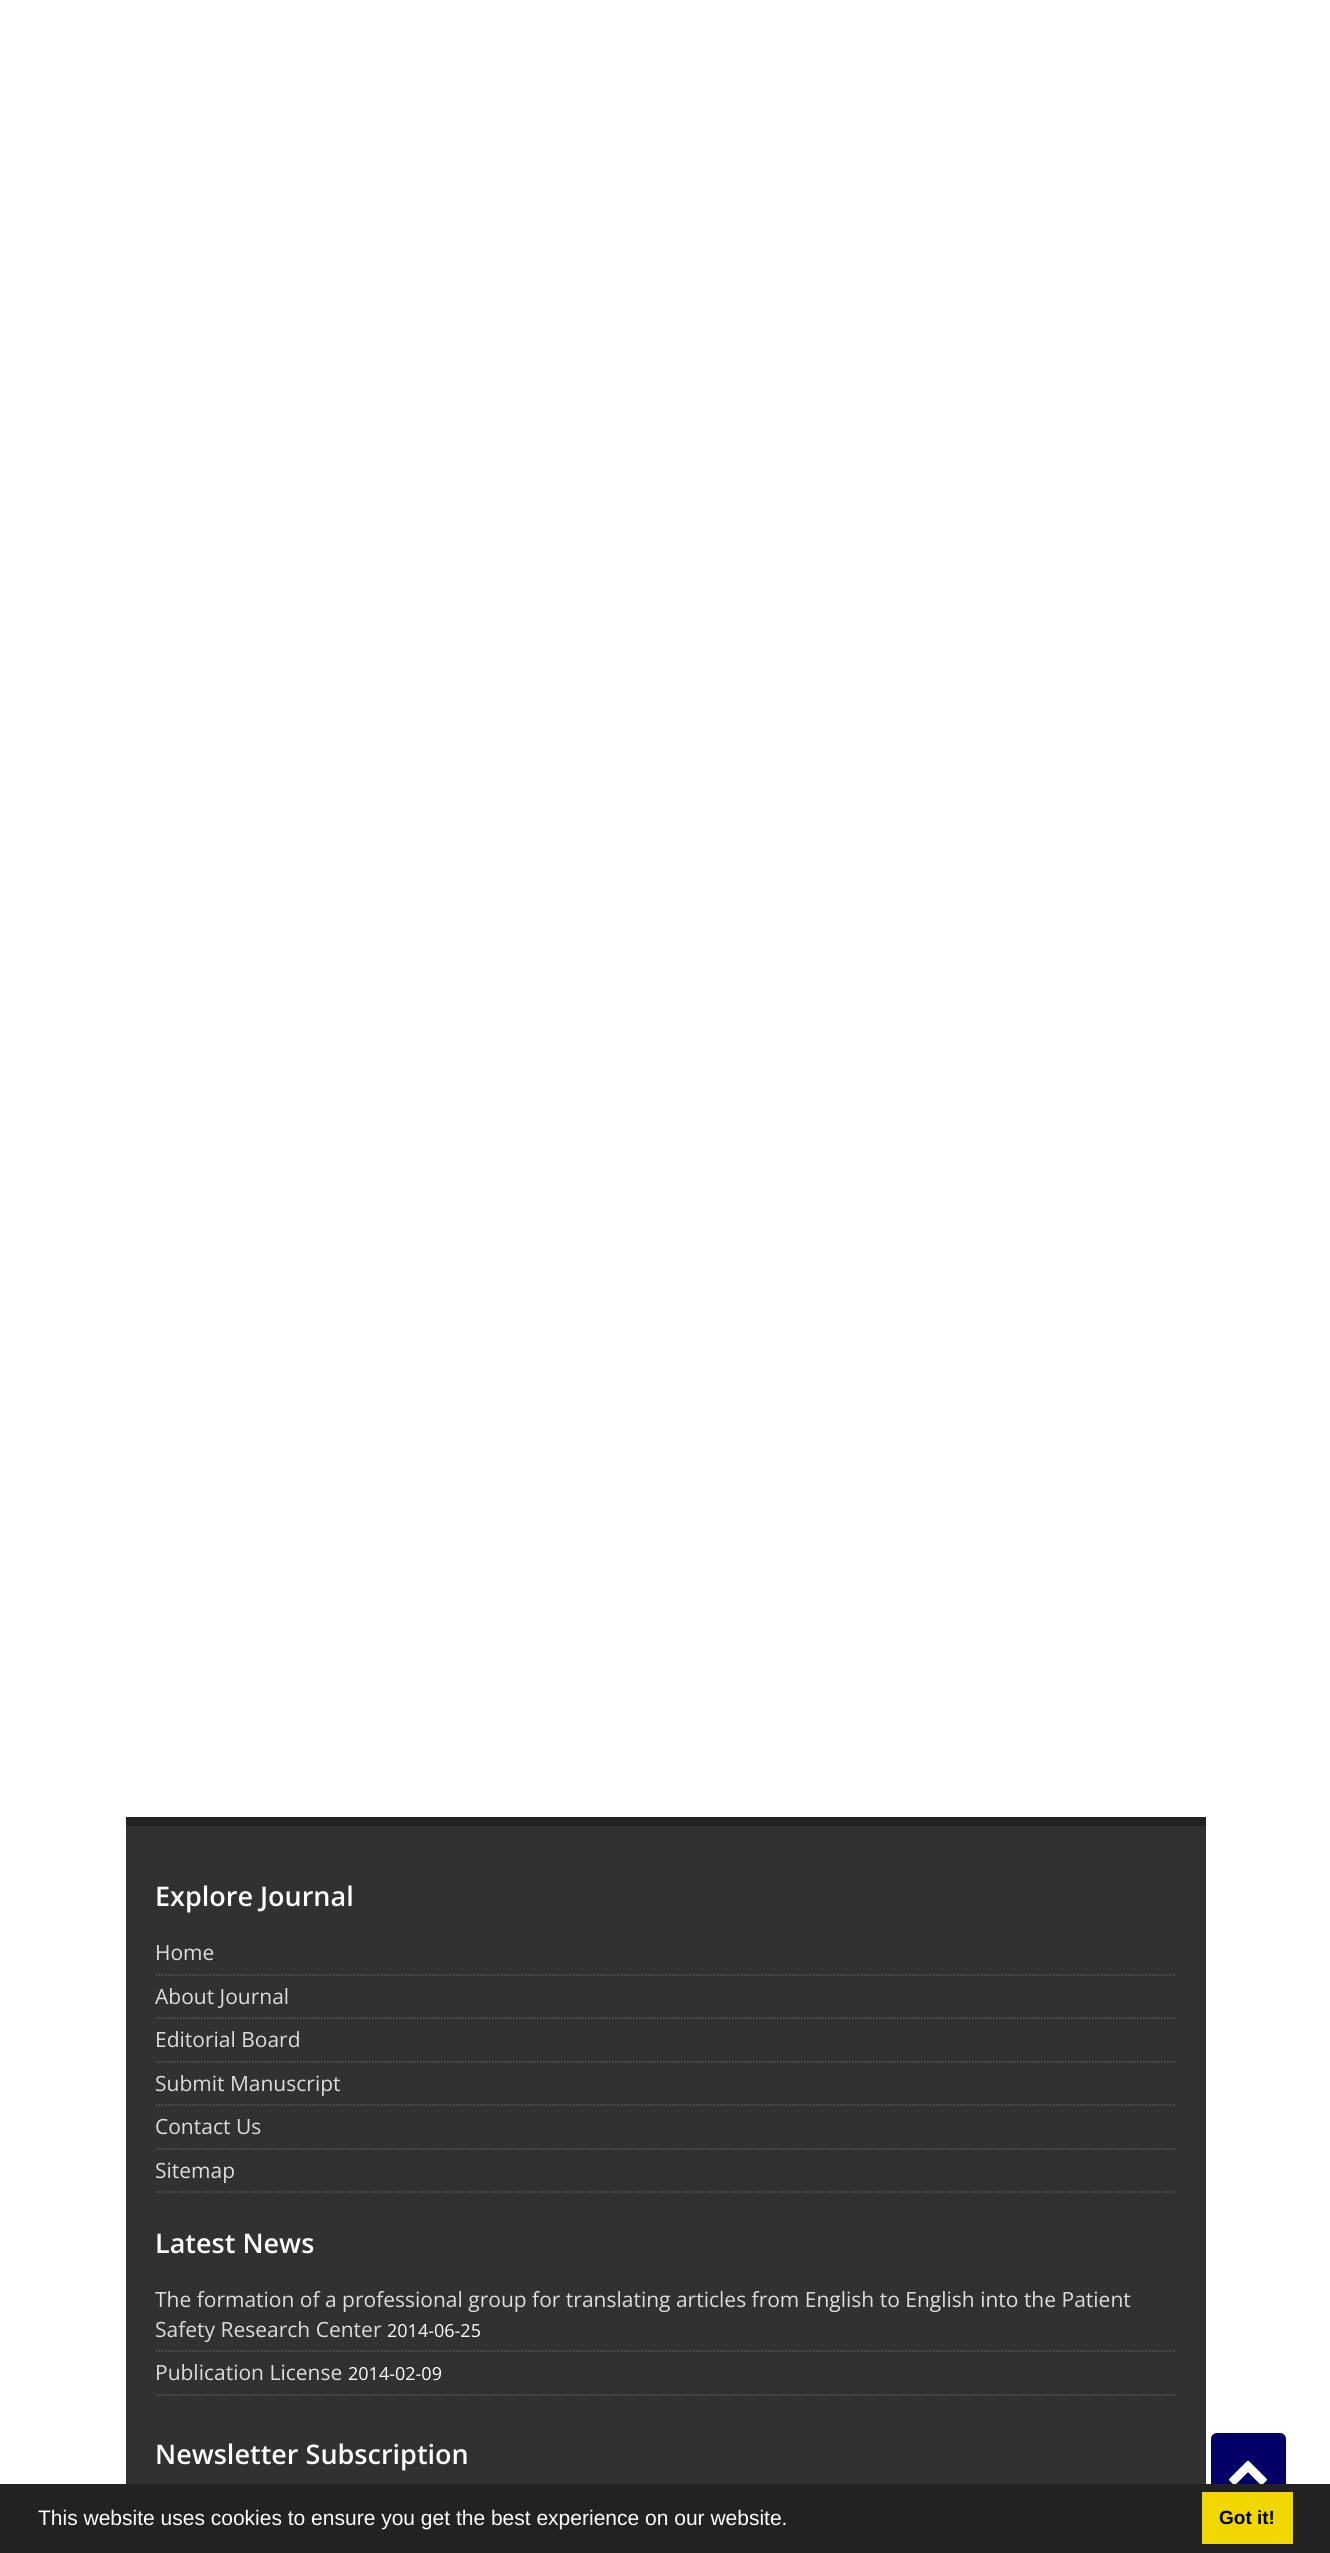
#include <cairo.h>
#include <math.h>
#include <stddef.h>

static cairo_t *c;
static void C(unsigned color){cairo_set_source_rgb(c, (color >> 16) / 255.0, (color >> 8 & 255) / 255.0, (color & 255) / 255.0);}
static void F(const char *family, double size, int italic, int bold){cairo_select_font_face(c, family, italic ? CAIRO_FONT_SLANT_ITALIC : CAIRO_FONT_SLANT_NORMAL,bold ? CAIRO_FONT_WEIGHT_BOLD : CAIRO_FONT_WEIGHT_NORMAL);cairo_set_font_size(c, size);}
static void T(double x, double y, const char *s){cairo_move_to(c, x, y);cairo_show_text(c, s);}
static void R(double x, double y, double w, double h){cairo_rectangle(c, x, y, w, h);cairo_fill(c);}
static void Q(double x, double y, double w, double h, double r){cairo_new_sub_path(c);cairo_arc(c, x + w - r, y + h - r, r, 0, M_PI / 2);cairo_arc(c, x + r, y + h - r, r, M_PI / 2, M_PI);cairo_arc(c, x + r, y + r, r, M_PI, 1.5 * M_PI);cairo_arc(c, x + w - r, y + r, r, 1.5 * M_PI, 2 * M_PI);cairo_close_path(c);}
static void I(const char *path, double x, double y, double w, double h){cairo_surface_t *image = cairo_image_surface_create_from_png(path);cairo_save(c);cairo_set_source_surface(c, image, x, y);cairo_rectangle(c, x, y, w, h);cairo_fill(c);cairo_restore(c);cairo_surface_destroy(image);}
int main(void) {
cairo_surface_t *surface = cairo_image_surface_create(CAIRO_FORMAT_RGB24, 1330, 2553);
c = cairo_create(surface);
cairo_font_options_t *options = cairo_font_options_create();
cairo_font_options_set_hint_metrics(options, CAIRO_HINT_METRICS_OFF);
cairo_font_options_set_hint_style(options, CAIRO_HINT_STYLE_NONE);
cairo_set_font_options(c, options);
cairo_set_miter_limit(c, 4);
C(0xffffff);
cairo_paint(c);
C(0x313131);
R(126,1826,1080,658);
C(0x222222);
R(126,1817,1080,9);
F("Open Sans SemiBold",27,0,0);
C(0xffffff);
T(155,1906,"Explore Journal");
cairo_new_path(c);
cairo_move_to(c,156,1975);
cairo_line_to(c,1176,1975);
C(0x5a5a5a);
cairo_set_line_width(c,1.5);
cairo_set_dash(c,(double[]){1.5,1.5},2,0);
cairo_stroke(c);
F("Open Sans",21,0,0);
C(0xdddddd);
T(155,1960,"Home");
cairo_new_path(c);
cairo_move_to(c,156,2018);
cairo_line_to(c,1176,2018);
C(0x5a5a5a);
cairo_stroke(c);
C(0xdddddd);
T(155,2004,"About Journal");
cairo_new_path(c);
cairo_move_to(c,156,2062);
cairo_line_to(c,1176,2062);
C(0x5a5a5a);
cairo_stroke(c);
C(0xdddddd);
T(155,2047,"Editorial Board");
cairo_new_path(c);
cairo_move_to(c,156,2105);
cairo_line_to(c,1176,2105);
C(0x5a5a5a);
cairo_stroke(c);
C(0xdddddd);
T(155,2091,"Submit Manuscript");
cairo_new_path(c);
cairo_move_to(c,156,2149);
cairo_line_to(c,1176,2149);
C(0x5a5a5a);
cairo_stroke(c);
C(0xdddddd);
T(155,2134,"Contact Us");
cairo_new_path(c);
cairo_move_to(c,156,2192);
cairo_line_to(c,1176,2192);
C(0x5a5a5a);
cairo_stroke(c);
C(0xdddddd);
T(155,2178,"Sitemap");
F("Open Sans SemiBold",27,0,0);
C(0xffffff);
T(155,2253,"Latest News");
cairo_new_path(c);
cairo_move_to(c,156,2351);
cairo_line_to(c,1176,2351);
C(0x5a5a5a);
cairo_stroke(c);
F("Open Sans",21,0,0);
C(0xdddddd);
T(155,2307,"The formation of a professional group for translating articles from English to English into the Patient");
T(155,2337,"Safety Research Center");
F("Open Sans",18,0,0);
C(0xffffff);
T(387,2337,"2014-06-25");
cairo_new_path(c);
cairo_move_to(c,156,2395);
cairo_line_to(c,1176,2395);
C(0x5a5a5a);
cairo_stroke(c);
F("Open Sans",21,0,0);
C(0xdddddd);
T(155,2380,"Publication License");
F("Open Sans",18,0,0);
C(0xffffff);
T(348,2380,"2014-02-09");
F("Open Sans SemiBold",27,0,0);
T(155,2464,"Newsletter Subscription");
C(0x000066);
Q(1211,2433,75,75,6);
cairo_fill(c);
I("1.png",1229,2460,38,24);
C(0x222222);
R(0,2484,1330,69);
F("Liberation Sans",21,0,0);
C(0xffffff);
T(38,2525,"This website uses cookies to ensure you get the best experience on our website.");
C(0xf1d600);
R(1202,2492,91,52);
F("Liberation Sans",19,0,1);
C(0x000000);
T(1219,2524,"Got it!");
cairo_surface_write_to_png(surface, "o.png");
cairo_font_options_destroy(options);
cairo_destroy(c);
cairo_surface_destroy(surface);
return 0;
}
